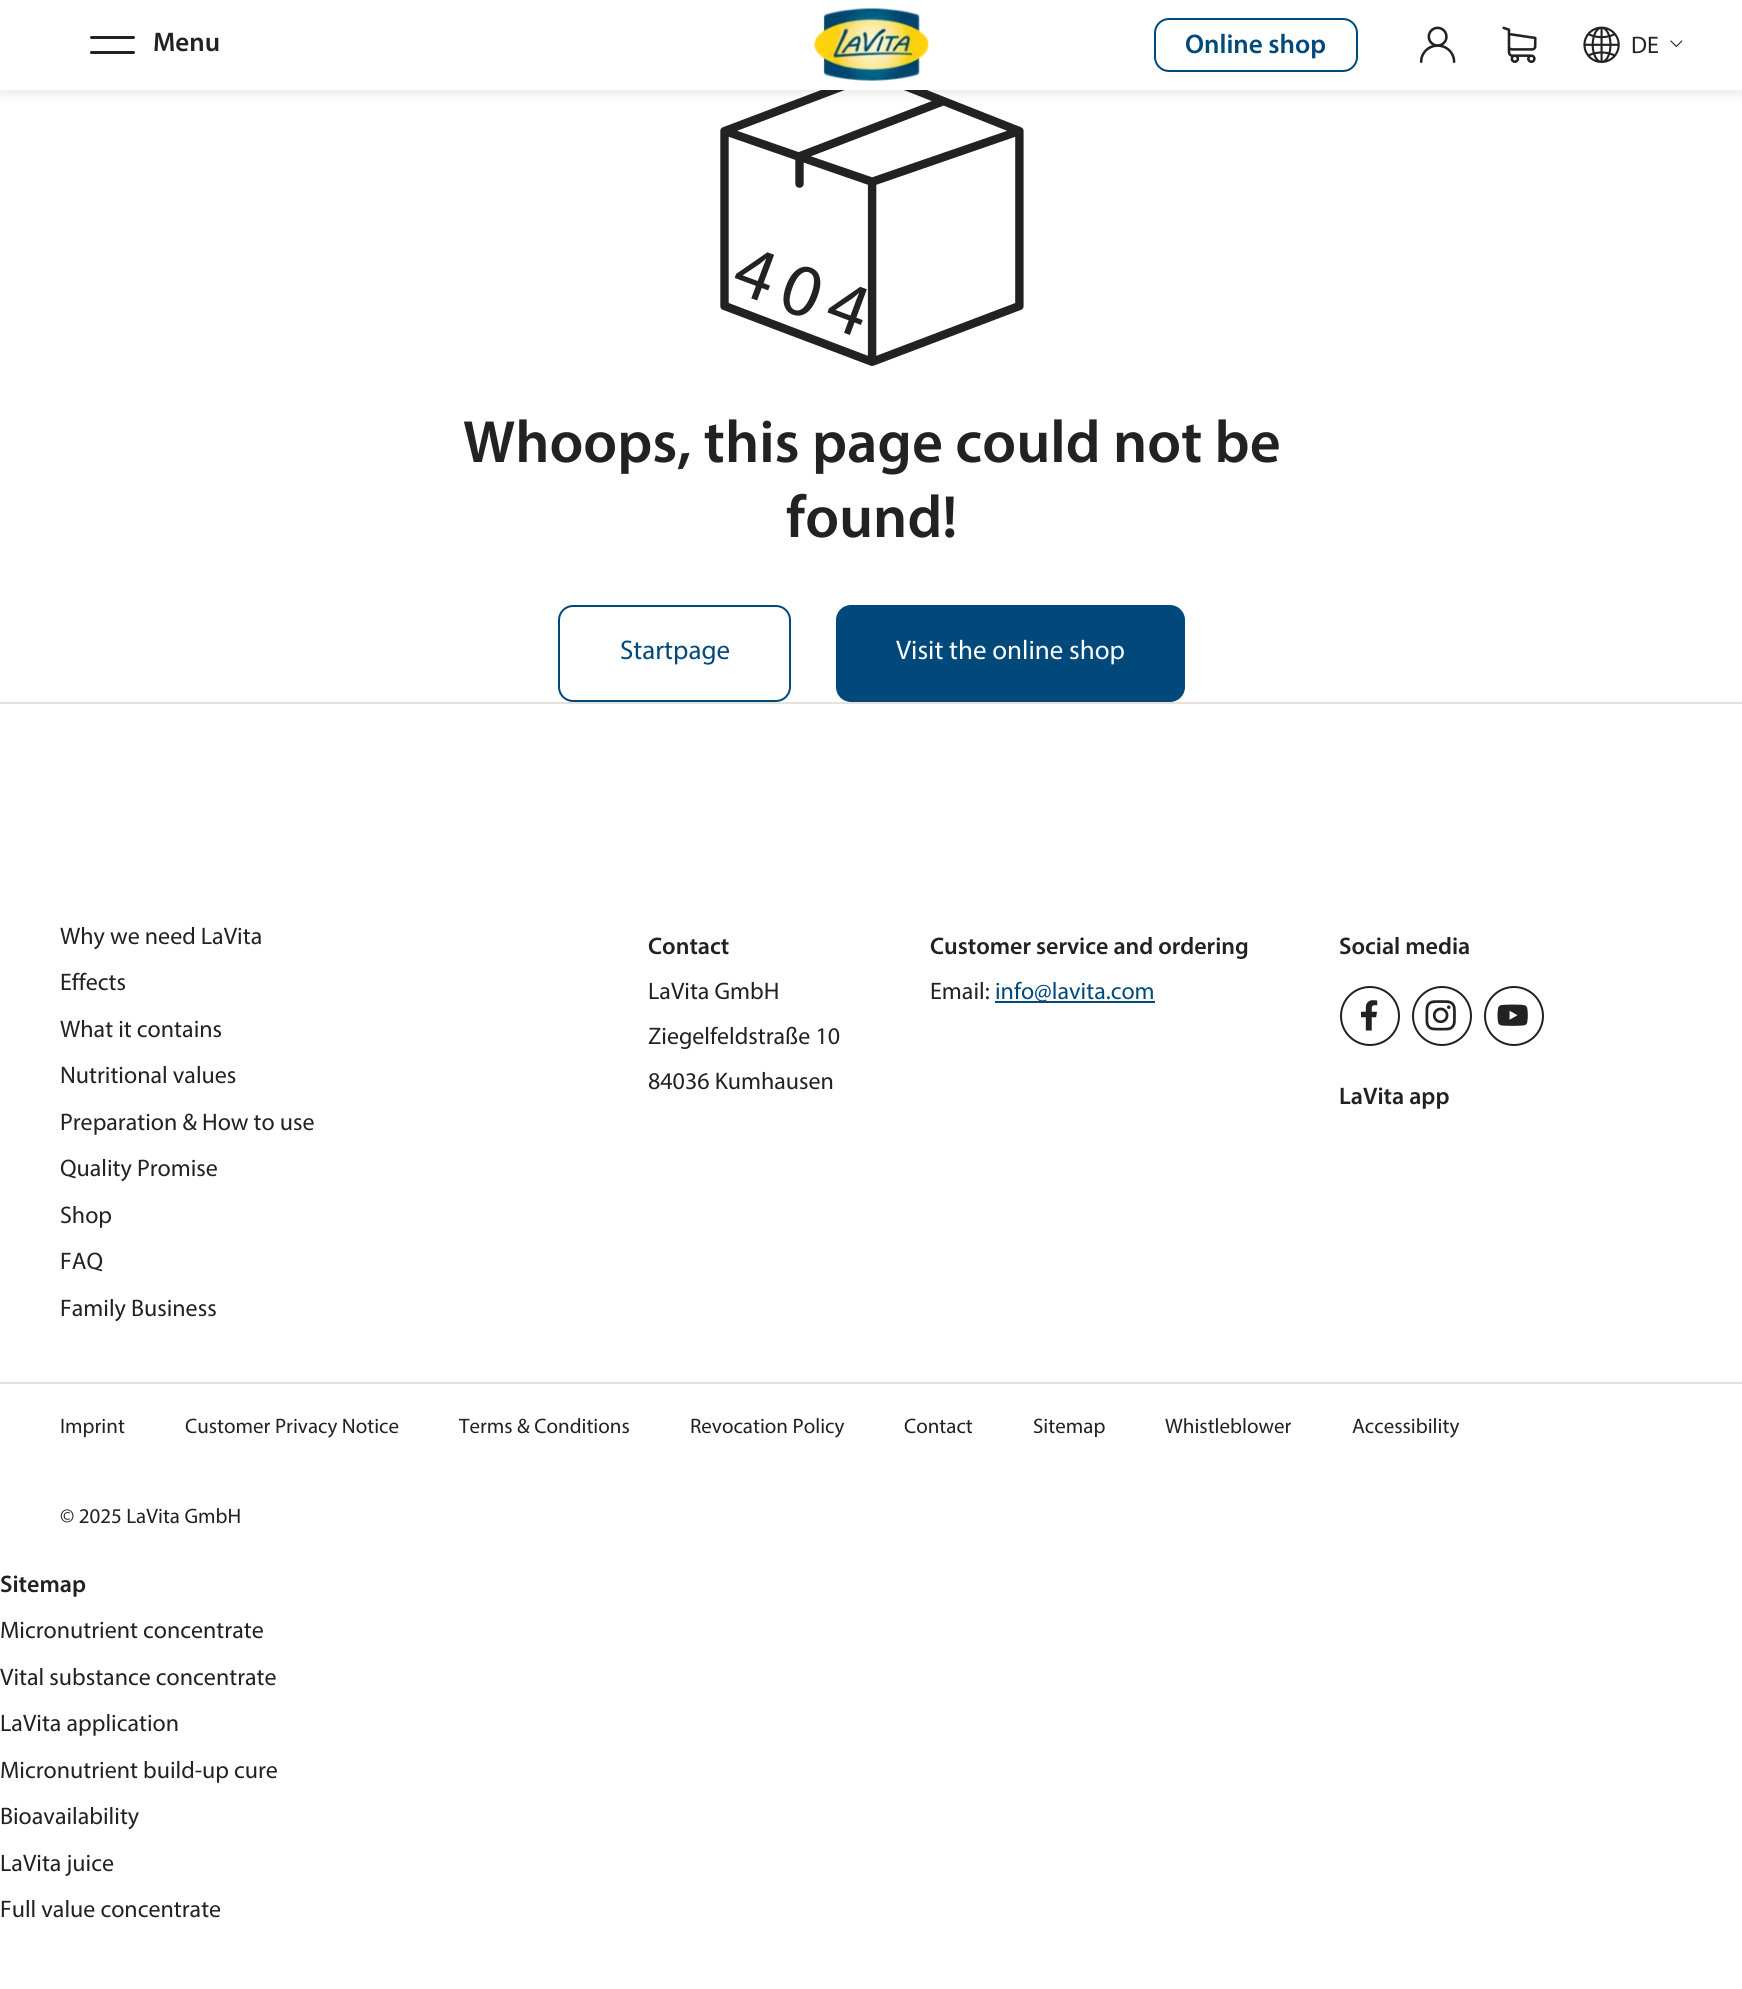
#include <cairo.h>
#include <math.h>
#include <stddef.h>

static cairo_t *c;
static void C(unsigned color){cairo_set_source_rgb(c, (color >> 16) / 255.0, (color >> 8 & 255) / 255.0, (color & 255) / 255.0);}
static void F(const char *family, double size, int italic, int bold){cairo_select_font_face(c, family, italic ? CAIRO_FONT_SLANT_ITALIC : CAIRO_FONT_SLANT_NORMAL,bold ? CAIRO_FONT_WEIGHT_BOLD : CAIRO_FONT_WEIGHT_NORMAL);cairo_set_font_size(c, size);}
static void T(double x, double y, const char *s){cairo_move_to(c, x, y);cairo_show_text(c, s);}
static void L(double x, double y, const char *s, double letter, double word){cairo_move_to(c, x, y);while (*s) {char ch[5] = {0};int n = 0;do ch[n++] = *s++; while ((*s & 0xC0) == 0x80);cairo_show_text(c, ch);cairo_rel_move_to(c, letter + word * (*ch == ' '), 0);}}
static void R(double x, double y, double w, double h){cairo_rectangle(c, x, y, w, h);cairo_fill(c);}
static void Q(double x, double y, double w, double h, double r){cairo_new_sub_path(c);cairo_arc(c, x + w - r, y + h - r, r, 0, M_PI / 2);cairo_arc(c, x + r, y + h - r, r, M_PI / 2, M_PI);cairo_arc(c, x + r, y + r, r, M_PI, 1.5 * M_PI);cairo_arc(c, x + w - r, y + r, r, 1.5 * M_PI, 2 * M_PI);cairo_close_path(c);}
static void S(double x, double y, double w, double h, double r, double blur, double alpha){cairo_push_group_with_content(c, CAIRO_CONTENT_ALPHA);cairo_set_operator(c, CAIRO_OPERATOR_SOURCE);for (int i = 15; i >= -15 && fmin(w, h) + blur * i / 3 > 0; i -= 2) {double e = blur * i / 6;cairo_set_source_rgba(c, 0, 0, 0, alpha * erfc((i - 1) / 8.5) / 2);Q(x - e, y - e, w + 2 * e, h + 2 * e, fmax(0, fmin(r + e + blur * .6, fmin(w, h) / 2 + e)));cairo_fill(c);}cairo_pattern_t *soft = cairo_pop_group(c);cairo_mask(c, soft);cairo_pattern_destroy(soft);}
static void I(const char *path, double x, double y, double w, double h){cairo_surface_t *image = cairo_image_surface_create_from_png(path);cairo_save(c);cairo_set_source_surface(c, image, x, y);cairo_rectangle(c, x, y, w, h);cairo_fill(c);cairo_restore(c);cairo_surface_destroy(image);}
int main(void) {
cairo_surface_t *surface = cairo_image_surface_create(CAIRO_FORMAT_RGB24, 1742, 1989);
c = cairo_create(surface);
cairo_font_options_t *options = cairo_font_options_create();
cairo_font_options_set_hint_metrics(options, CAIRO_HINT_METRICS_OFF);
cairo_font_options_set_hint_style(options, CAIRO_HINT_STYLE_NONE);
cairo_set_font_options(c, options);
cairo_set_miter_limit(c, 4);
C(0xffffff);
cairo_paint(c);
I("6.png",720,90,304,276);
C(0x222222);
S(0,0,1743,90,0,7.5,.16);
C(0xffffff);
R(0,0,1742,90);
C(0x222222);
Q(90,36,45,3,1.5);
cairo_fill(c);
Q(90,51,45,3,1.5);
cairo_fill(c);
F("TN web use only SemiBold",27,0,0);
T(153,51,"Menu");
I("1.png",814,8,115,73);
Q(1155,19,202,52,14);
C(0x00497a);
cairo_stroke(c);
T(1185,53,"Online shop");
I("2.png",1419,26,37,37);
I("3.png",1502,26,35,37);
I("4.png",1583,26,37,37);
F("TN web use only",24,0,0);
C(0x222222);
T(1631,53,"DE");
I("5.png",1670,40,13,7);
F("TN web use only",75,0,0);
cairo_save(c);
cairo_translate(c,729,290);
cairo_rotate(c,20.4 * M_PI / 180);
L(0,0,"404",11,0);
cairo_restore(c);
F("TN web use only SemiBold",60,0,0);
T(463,462,"Whoops, this page could not be");
T(786,537,"found!");
Q(559,606,231,95,14);
C(0x00497a);
cairo_stroke(c);
F("TN web use only",27,0,0);
T(620,659,"Startpage");
Q(836,605,349,97,15);
cairo_fill(c);
C(0xffffff);
T(896,659,"Visit the online shop");
C(0xe5e2de);
R(0,702,1742,2);
F("TN web use only",24,0,0);
C(0x222222);
T(60,944,"Why we need LaVita");
T(60,990,"Effects");
T(60,1037,"What it contains");
T(60,1083,"Nutritional values");
T(60,1130,"Preparation & How to use");
T(60,1176,"Quality Promise");
T(60,1223,"Shop");
T(60,1269,"FAQ");
T(60,1316,"Family Business");
F("TN web use only SemiBold",24,0,0);
T(648,954,"Contact");
F("TN web use only",24,0,0);
T(648,999,"LaVita GmbH");
T(648,1044,"Ziegelfeldstraße 10");
T(648,1089,"84036 Kumhausen");
F("TN web use only SemiBold",24,0,0);
T(930,954,"Customer service and ordering");
F("TN web use only",24,0,0);
T(930,999,"Email:");
C(0x00497a);
R(995,1001,160,2);
T(995,999,"info@lavita.com");
F("TN web use only SemiBold",24,0,0);
C(0x222222);
T(1339,954,"Social media");
cairo_new_path(c);
cairo_arc(c,1370,1016,29,0,2 * M_PI);
cairo_stroke(c);
I("7.png",1361,1000,17,31);
cairo_arc(c,1442,1016,29,0,2 * M_PI);
cairo_stroke(c);
I("8.png",1425,1000,31,31);
cairo_arc(c,1514,1016,29,0,2 * M_PI);
cairo_stroke(c);
I("9.png",1497,1004,31,22);
T(1339,1104,"LaVita app");
C(0xe5e2de);
R(0,1382,1742,2);
F("TN web use only",21,0,0);
C(0x222222);
T(60,1433,"Imprint");
T(185,1433,"Customer Privacy Notice");
T(459,1433,"Terms & Conditions");
T(690,1433,"Revocation Policy");
T(904,1433,"Contact");
T(1033,1433,"Sitemap");
T(1165,1433,"Whistleblower");
T(1352,1433,"Accessibility");
T(60,1523,"© 2025 LaVita GmbH");
F("TN web use only SemiBold",24,0,0);
T(0,1592,"Sitemap");
F("TN web use only",24,0,0);
T(0,1638,"Micronutrient concentrate");
T(0,1685,"Vital substance concentrate");
T(0,1731,"LaVita application");
T(0,1778,"Micronutrient build-up cure");
T(0,1824,"Bioavailability");
T(0,1871,"LaVita juice");
T(0,1917,"Full value concentrate");
cairo_surface_write_to_png(surface, "o.png");
cairo_font_options_destroy(options);
cairo_destroy(c);
cairo_surface_destroy(surface);
return 0;
}
